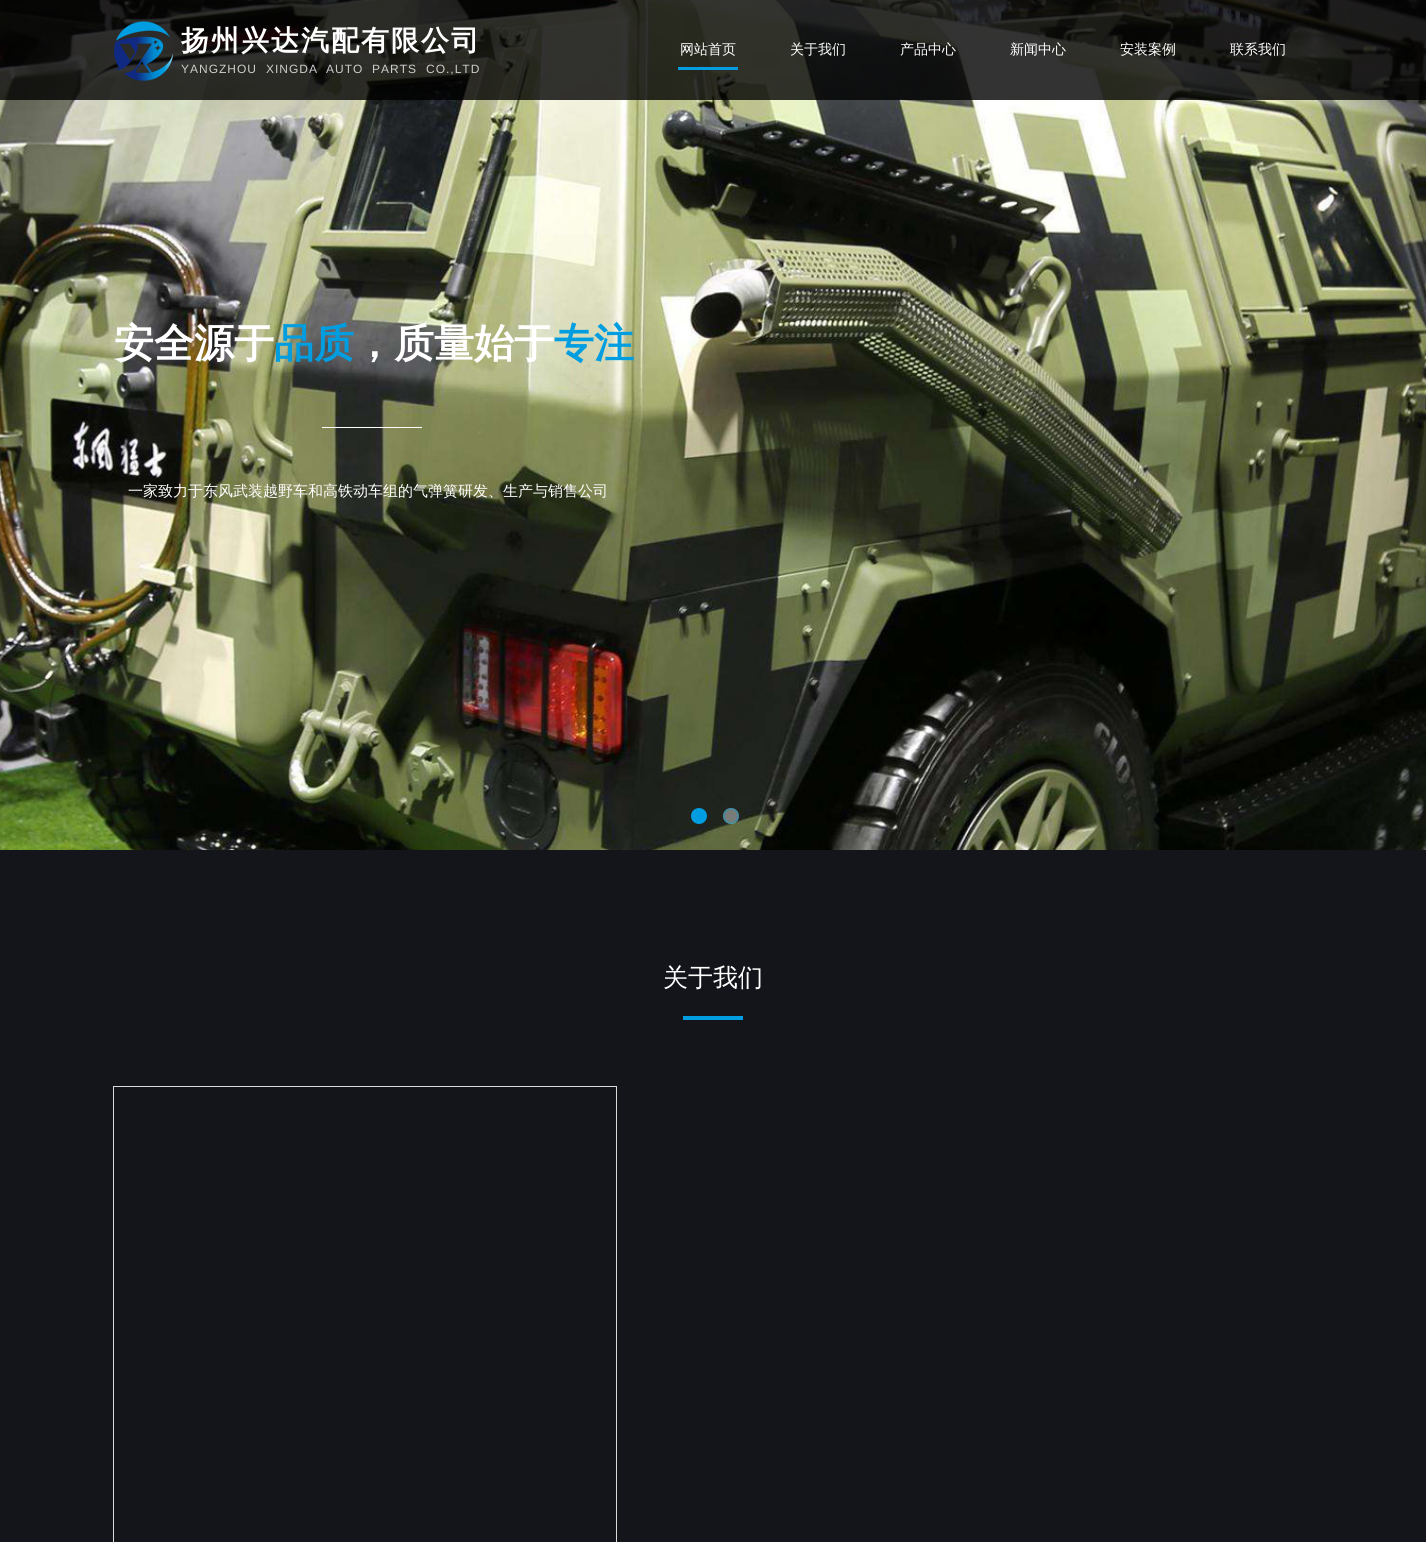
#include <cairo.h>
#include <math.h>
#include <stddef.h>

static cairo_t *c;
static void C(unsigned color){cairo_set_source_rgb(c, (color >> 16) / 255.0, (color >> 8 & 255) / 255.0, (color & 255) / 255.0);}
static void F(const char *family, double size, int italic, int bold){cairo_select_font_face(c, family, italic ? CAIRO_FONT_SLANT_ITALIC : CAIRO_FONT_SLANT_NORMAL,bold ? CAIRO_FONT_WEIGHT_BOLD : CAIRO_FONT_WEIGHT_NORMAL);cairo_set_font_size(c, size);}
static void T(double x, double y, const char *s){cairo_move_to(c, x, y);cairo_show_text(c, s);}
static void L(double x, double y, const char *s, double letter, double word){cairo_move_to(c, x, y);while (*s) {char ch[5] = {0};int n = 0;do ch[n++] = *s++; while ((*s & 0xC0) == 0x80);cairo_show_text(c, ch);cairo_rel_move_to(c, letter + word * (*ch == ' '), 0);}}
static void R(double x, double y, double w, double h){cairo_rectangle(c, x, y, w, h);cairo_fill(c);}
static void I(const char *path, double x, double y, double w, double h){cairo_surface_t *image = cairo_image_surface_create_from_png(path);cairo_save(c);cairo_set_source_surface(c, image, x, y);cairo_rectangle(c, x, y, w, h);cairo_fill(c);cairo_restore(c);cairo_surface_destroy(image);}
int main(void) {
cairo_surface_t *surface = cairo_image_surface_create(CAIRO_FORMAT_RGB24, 1426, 1542);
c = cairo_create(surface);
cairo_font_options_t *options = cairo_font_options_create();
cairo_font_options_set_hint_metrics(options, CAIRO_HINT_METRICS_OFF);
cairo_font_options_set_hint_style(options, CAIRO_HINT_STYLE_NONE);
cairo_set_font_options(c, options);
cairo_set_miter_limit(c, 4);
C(0x14151b);
cairo_paint(c);
I("2.png",0,0,1426,850);
cairo_set_source_rgba(c,0,0,0,0.8);
R(0,0,1426,100);
I("1.png",114,21,59,60);
F("WenQuanYi Zen Hei",28,0,1);
C(0xffffff);
L(181,50,"扬州兴达汽配有限公司",2,0);
C(0x009de0);
R(678,67,60,3);
F("WenQuanYi Zen Hei Medium",14,0,0);
C(0xffffff);
T(680,54,"网站首页");
T(790,54,"关于我们");
T(900,54,"产品中心");
T(1010,54,"新闻中心");
T(1120,54,"安装案例");
T(1230,54,"联系我们");
F("Liberation Sans",12,0,0);
C(0xcccccc);
L(181,73,"YANGZHOU",1,0);
L(266,73,"XINGDA",1,0);
L(326,73,"AUTO",1,0);
L(372,73,"PARTS",1,0);
L(426,73,"CO.,LTD",1,0);
C(0x009ee0);
cairo_new_path(c);
cairo_arc(c,699,816,7,0,2 * M_PI);
cairo_fill_preserve(c);
cairo_stroke(c);
cairo_set_source_rgba(c,1,1,1,0.4);
cairo_arc(c,731,816,8,0,2 * M_PI);
cairo_fill(c);
cairo_arc(c,731,816,7,0,2 * M_PI);
cairo_set_source_rgba(c,0,0.62,0.878,0.4);
cairo_stroke(c);
F("WenQuanYi Zen Hei",40,0,1);
C(0xffffff);
T(114,357,"安全源于");
C(0x009ee0);
T(274,357,"品质");
C(0xffffff);
T(354,357,"，质量始于");
C(0x009ee0);
T(554,357,"专注");
C(0xffffff);
R(322,427,100,1);
F("WenQuanYi Zen Hei Medium",15,0,0);
T(128,496,"一家致力于东风武装越野车和高铁动车组的气弹簧研发、生产与销售公司");
F("WenQuanYi Zen Hei Medium",25,0,0);
T(663,986,"关于我们");
C(0x009ee0);
R(683,1016,60,4);
cairo_rectangle(c,113.5,1086.5,503,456);
C(0xd9d9d9);
cairo_set_line_width(c,1);
cairo_stroke(c);
cairo_surface_write_to_png(surface, "o.png");
cairo_font_options_destroy(options);
cairo_destroy(c);
cairo_surface_destroy(surface);
return 0;
}
